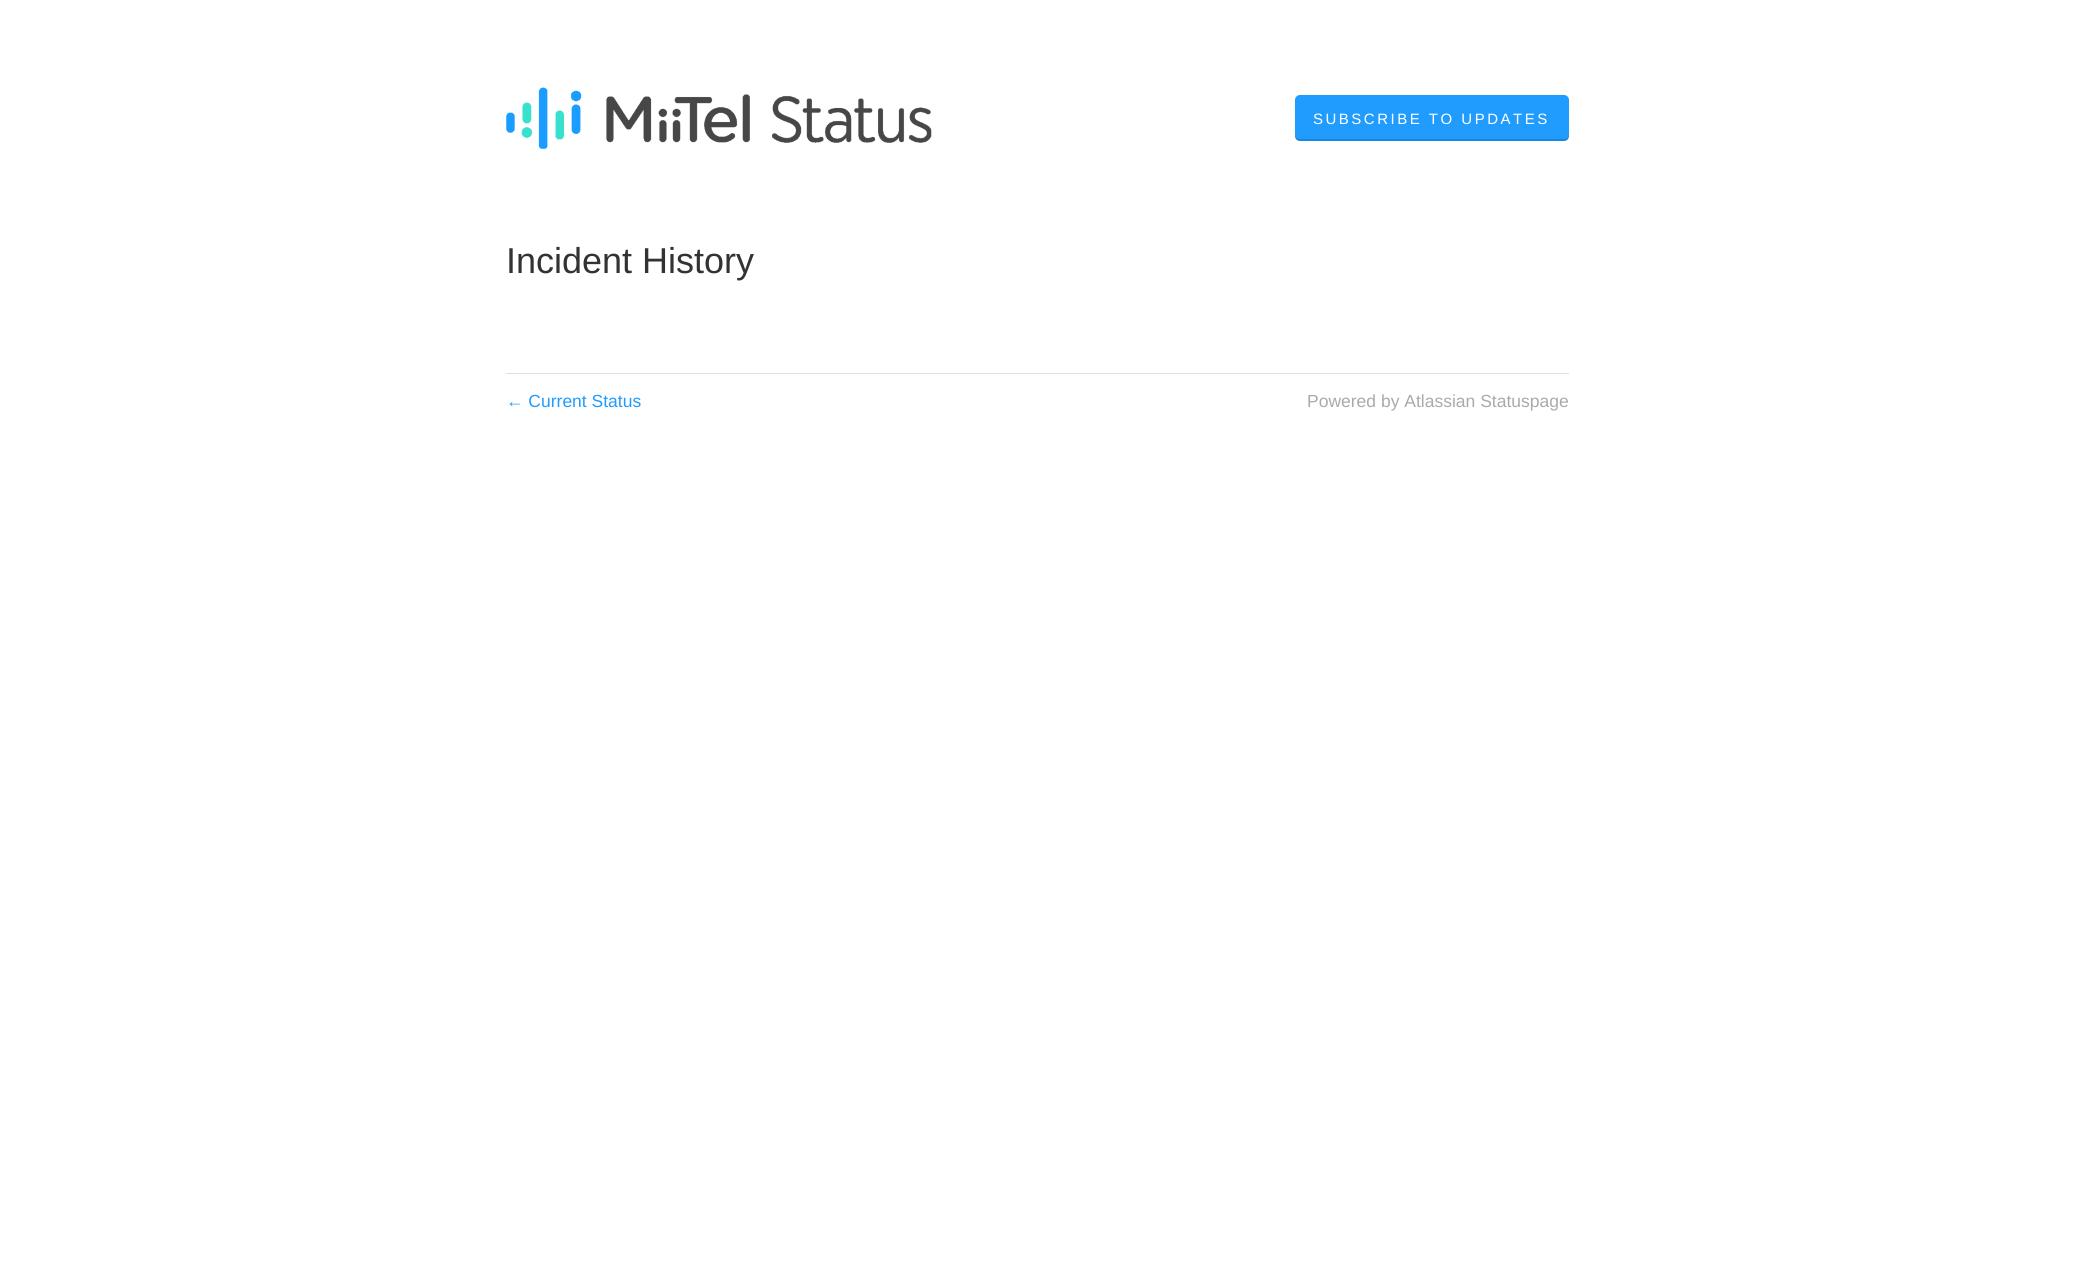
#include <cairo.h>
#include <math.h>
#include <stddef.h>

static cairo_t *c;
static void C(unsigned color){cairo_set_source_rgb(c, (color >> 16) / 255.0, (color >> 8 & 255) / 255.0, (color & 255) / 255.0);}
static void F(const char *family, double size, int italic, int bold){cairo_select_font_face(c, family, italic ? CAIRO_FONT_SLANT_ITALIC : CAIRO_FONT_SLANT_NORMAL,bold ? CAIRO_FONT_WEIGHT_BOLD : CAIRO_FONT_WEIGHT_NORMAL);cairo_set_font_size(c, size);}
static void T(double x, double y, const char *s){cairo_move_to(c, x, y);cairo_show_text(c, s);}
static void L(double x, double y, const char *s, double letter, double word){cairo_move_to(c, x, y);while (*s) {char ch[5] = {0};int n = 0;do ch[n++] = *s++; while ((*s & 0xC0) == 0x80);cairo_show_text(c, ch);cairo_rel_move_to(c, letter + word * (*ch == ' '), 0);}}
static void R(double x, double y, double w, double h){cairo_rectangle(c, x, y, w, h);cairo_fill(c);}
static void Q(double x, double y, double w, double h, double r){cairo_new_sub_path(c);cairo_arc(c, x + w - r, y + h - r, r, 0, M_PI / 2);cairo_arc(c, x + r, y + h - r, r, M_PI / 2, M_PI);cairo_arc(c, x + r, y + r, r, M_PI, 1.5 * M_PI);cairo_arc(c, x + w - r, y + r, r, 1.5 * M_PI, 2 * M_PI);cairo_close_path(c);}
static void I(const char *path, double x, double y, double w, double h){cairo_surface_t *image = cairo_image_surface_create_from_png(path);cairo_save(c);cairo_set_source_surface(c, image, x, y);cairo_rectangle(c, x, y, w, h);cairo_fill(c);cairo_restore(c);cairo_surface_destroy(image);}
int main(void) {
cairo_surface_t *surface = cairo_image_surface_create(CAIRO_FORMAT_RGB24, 2074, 1275);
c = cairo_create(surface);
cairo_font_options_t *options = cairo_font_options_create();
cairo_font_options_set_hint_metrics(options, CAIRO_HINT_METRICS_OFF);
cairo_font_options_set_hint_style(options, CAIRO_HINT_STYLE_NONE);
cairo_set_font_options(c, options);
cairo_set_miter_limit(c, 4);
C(0xffffff);
cairo_paint(c);
I("1.png",506,87,426,62);
C(0x209cff);
Q(1295,95,274,46,5);
cairo_fill(c);
cairo_set_source_rgba(c,0,0,0,0.15);
cairo_new_path(c);
cairo_move_to(c,1295,134);
cairo_line_to(c,1295,136);
cairo_curve_to(c,1295,139,1297,141,1300,141);
cairo_line_to(c,1564,141);
cairo_curve_to(c,1567,141,1569,139,1569,136);
cairo_line_to(c,1569,134);
cairo_curve_to(c,1569,137,1567,139,1564,139);
cairo_line_to(c,1300,139);
cairo_curve_to(c,1297,139,1295,137,1295,134);
cairo_close_path(c);
cairo_fill(c);
F("Liberation Sans",15,0,0);
C(0xffffff);
L(1313,124,"SUBSCRIBE TO UPDATES",2.5,0);
F("Liberation Sans",36,0,0);
C(0x333333);
T(506,273,"Incident History");
C(0xe0e0e0);
R(506,373,1063,1);
F("Liberation Sans",17.5,0,0);
C(0x209cff);
T(506,407,"← Current Status");
C(0xaaaaaa);
T(1307,407,"Powered by Atlassian Statuspage");
cairo_surface_write_to_png(surface, "o.png");
cairo_font_options_destroy(options);
cairo_destroy(c);
cairo_surface_destroy(surface);
return 0;
}
